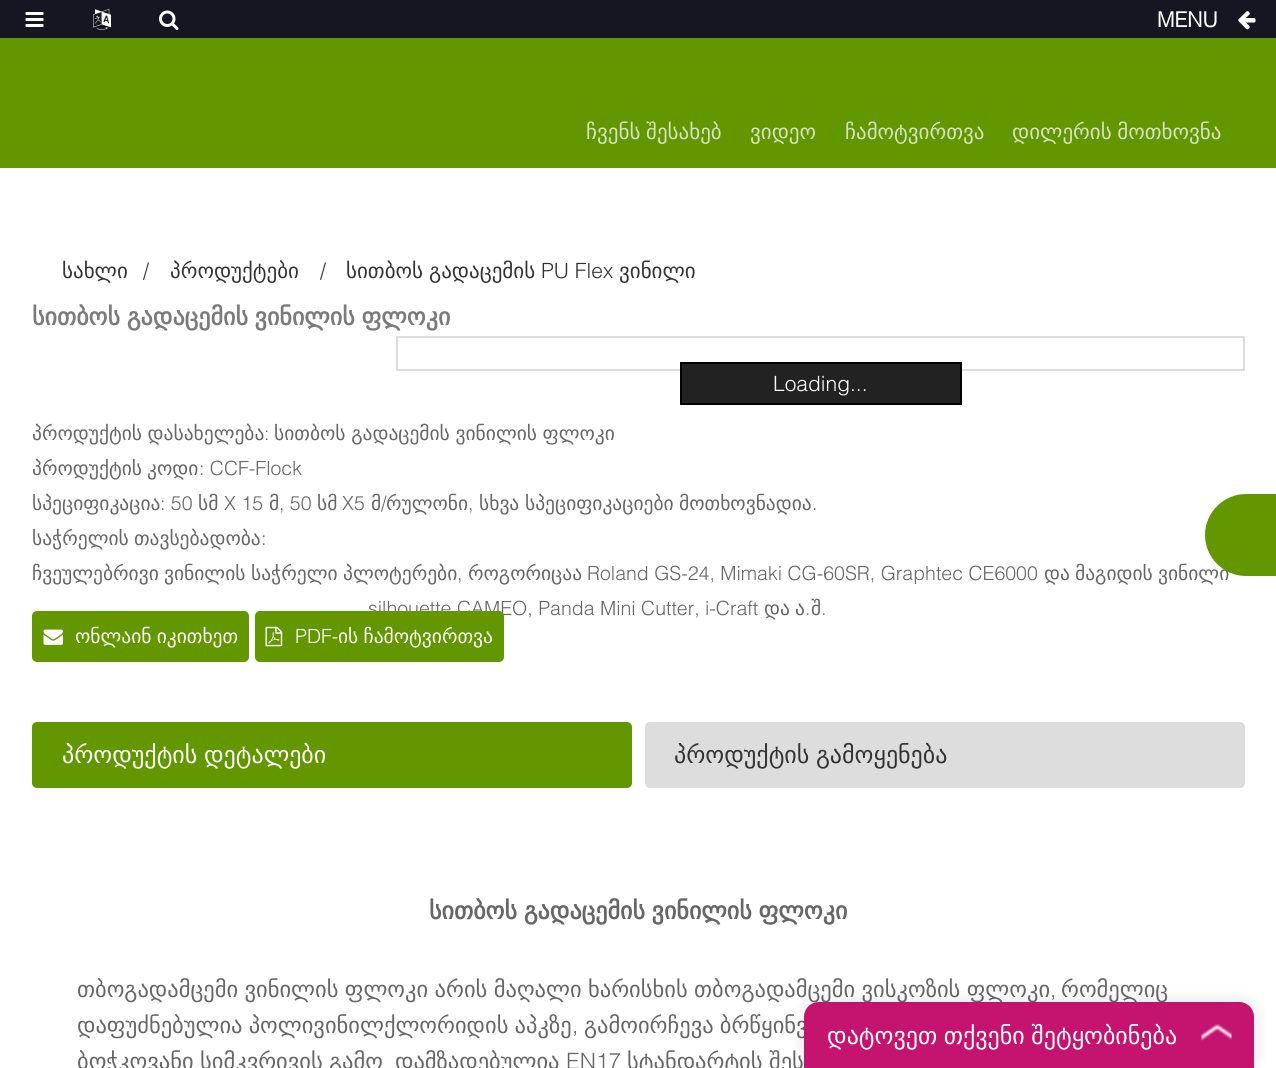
#include <cairo.h>
#include <math.h>
#include <stddef.h>

static cairo_t *c;
static void C(unsigned color){cairo_set_source_rgb(c, (color >> 16) / 255.0, (color >> 8 & 255) / 255.0, (color & 255) / 255.0);}
static void F(const char *family, double size, int italic, int bold){cairo_select_font_face(c, family, italic ? CAIRO_FONT_SLANT_ITALIC : CAIRO_FONT_SLANT_NORMAL,bold ? CAIRO_FONT_WEIGHT_BOLD : CAIRO_FONT_WEIGHT_NORMAL);cairo_set_font_size(c, size);}
static void T(double x, double y, const char *s){cairo_move_to(c, x, y);cairo_show_text(c, s);}
static void L(double x, double y, const char *s, double letter, double word){cairo_move_to(c, x, y);while (*s) {char ch[5] = {0};int n = 0;do ch[n++] = *s++; while ((*s & 0xC0) == 0x80);cairo_show_text(c, ch);cairo_rel_move_to(c, letter + word * (*ch == ' '), 0);}}
static void R(double x, double y, double w, double h){cairo_rectangle(c, x, y, w, h);cairo_fill(c);}
static void Q(double x, double y, double w, double h, double r){cairo_new_sub_path(c);cairo_arc(c, x + w - r, y + h - r, r, 0, M_PI / 2);cairo_arc(c, x + r, y + h - r, r, M_PI / 2, M_PI);cairo_arc(c, x + r, y + r, r, M_PI, 1.5 * M_PI);cairo_arc(c, x + w - r, y + r, r, 1.5 * M_PI, 2 * M_PI);cairo_close_path(c);}
static void S(double x, double y, double w, double h, double r, double blur, double alpha){cairo_push_group_with_content(c, CAIRO_CONTENT_ALPHA);cairo_set_operator(c, CAIRO_OPERATOR_SOURCE);for (int i = 15; i >= -15 && fmin(w, h) + blur * i / 3 > 0; i -= 2) {double e = blur * i / 6;cairo_set_source_rgba(c, 0, 0, 0, alpha * erfc((i - 1) / 8.5) / 2);Q(x - e, y - e, w + 2 * e, h + 2 * e, fmax(0, fmin(r + e + blur * .6, fmin(w, h) / 2 + e)));cairo_fill(c);}cairo_pattern_t *soft = cairo_pop_group(c);cairo_mask(c, soft);cairo_pattern_destroy(soft);}
static void I(const char *path, double x, double y, double w, double h){cairo_surface_t *image = cairo_image_surface_create_from_png(path);cairo_save(c);cairo_set_source_surface(c, image, x, y);cairo_rectangle(c, x, y, w, h);cairo_fill(c);cairo_restore(c);cairo_surface_destroy(image);}
int main(void) {
cairo_surface_t *surface = cairo_image_surface_create(CAIRO_FORMAT_RGB24, 1276, 1068);
c = cairo_create(surface);
cairo_font_options_t *options = cairo_font_options_create();
cairo_font_options_set_hint_metrics(options, CAIRO_HINT_METRICS_OFF);
cairo_font_options_set_hint_style(options, CAIRO_HINT_STYLE_NONE);
cairo_set_font_options(c, options);
cairo_set_miter_limit(c, 4);
C(0xffffff);
cairo_paint(c);
C(0x161622);
R(0,0,1276,38);
I("1.png",25,12,19,15);
I("2.png",93,9,18,21);
I("3.png",159,10,20,20);
F("Helvetica",21,0,1);
C(0xffffff);
T(1157,27,"MENU");
I("4.png",1238,11,18,19);
C(0x629700);
R(0,38,1276,130);
F("DejaVu Sans",21,0,0);
C(0xd7e1c4);
L(586,139,"ჩვენს შესახებ",0,-1);
T(750,139,"ვიდეო");
T(845,139,"ჩამოტვირთვა");
L(1012,139,"დილერის მოთხოვნა",0,-1);
C(0x333333);
T(62,278,"სახლი");
F("Helvetica Light",21,0,0);
T(143,278,"/");
F("DejaVu Sans",21,0,0);
T(170,278,"პროდუქტები");
F("Helvetica Light",21,0,0);
T(320,278,"/");
F("DejaVu Sans",21,0,0);
T(346,278,"სითბოს");
T(429,278,"გადაცემის");
F("Helvetica Light",21,0,0);
T(541,278,"PU Flex");
F("DejaVu Sans",21,0,0);
T(619,278,"ვინილი");
F("DejaVu Sans",24,0,1);
C(0x7b7b7b);
L(32,325,"სითბოს გადაცემის ვინილის ფლოკი",0,-1);
cairo_rectangle(c,397,337,847,33);
C(0xdddddd);
cairo_stroke(c);
C(0x222222);
cairo_rectangle(c,681,363,280,41);
cairo_fill_preserve(c);
C(0x000000);
cairo_stroke(c);
F("Helvetica Light",21,0,0);
C(0xffffff);
T(773,391,"Loading...");
F("DejaVu Sans",19.5,0,0);
C(0x666666);
L(32,440,"პროდუქტის დასახელება",0,-.5);
F("Helvetica Light",19.5,0,0);
T(264,440,":");
F("DejaVu Sans",19.5,0,0);
L(274,440,"სითბოს გადაცემის ვინილის ფლოკი",0,-.5);
T(32,475,"პროდუქტის");
T(147,475,"კოდი");
F("Helvetica Light",19.5,0,0);
T(199,475,": CCF-Flock");
F("DejaVu Sans",19.5,0,0);
T(32,510,"სპეციფიკაცია");
F("Helvetica Light",19.5,0,0);
T(160,510,": 50");
F("DejaVu Sans",19.5,0,0);
T(198,510,"სმ");
F("Helvetica Light",19.5,0,0);
T(224,510,"X 15");
F("DejaVu Sans",19.5,0,0);
T(269,510,"მ");
F("Helvetica Light",19.5,0,0);
T(279,510,", 50");
F("DejaVu Sans",19.5,0,0);
T(317,510,"სმ");
F("Helvetica Light",19.5,0,0);
T(342,510,"X5");
F("DejaVu Sans",19.5,0,0);
T(371,510,"მ");
F("Helvetica Light",19.5,0,0);
T(381,510,"/");
F("DejaVu Sans",19.5,0,0);
T(386,510,"რულონი");
F("Helvetica Light",19.5,0,0);
T(468,510,",");
F("DejaVu Sans",19.5,0,0);
T(479,510,"სხვა");
T(525,510,"სპეციფიკაციები");
T(679,510,"მოთხოვნადია");
F("Helvetica Light",19.5,0,0);
T(812,510,".");
F("DejaVu Sans",19.5,0,0);
L(32,545,"საჭრელის თავსებადობა",0,-1);
F("Helvetica Light",19.5,0,0);
T(261,545,":");
F("DejaVu Sans",19.5,0,0);
T(32,580,"ჩვეულებრივი");
T(164,580,"ვინილის");
T(251,580,"საჭრელი");
T(343,580,"პლოტერები");
F("Helvetica Light",19.5,0,0);
T(457,580,",");
F("DejaVu Sans",19.5,0,0);
T(468,580,"როგორიცაა");
F("Helvetica Light",19.5,0,0);
T(587,580,"Roland GS-24, Mimaki CG-60SR, Graphtec CE6000");
F("DejaVu Sans",19.5,0,0);
T(1044,580,"და");
T(1075,580,"მაგიდის");
T(1158,580,"ვინილი");
F("Helvetica Light",19.5,0,0);
T(368,615,"silhouette CAMEO, Panda Mini Cutter, i-Craft");
F("DejaVu Sans",19.5,0,0);
T(764,615,"და");
T(795,615,"ა");
F("Helvetica Light",19.5,0,0);
T(805,615,".");
F("DejaVu Sans",19.5,0,0);
T(811,615,"შ");
F("Helvetica Light",19.5,0,0);
T(821,615,".");
C(0x629700);
Q(33,612,215,49,4);
cairo_fill_preserve(c);
cairo_stroke(c);
I("5.png",43,629,20,16);
F("DejaVu Sans",19.5,0,0);
C(0xffffff);
L(75,643,"ონლაინ იკითხეთ",0,-1);
C(0x629700);
Q(256,612,247,49,4);
cairo_fill_preserve(c);
cairo_stroke(c);
I("6.png",265,626,18,21);
F("Helvetica Light",19.5,0,0);
C(0xffffff);
T(295,643,"PDF-");
F("DejaVu Sans",19.5,0,0);
L(338,643,"ის ჩამოტვირთვა",0,-1);
C(0x629700);
Q(32,722,600,66,5);
cairo_fill(c);
F("DejaVu Sans",24,0,0);
C(0xffffff);
L(62,763,"პროდუქტის დეტალები",0,-1);
C(0xdddddd);
Q(645,722,600,66,5);
cairo_fill(c);
C(0x333333);
L(674,763,"პროდუქტის გამოყენება",0,-1);
F("DejaVu Sans",24,0,1);
C(0x666666);
L(429,919,"სითბოს გადაცემის ვინილის ფლოკი",0,-1);
F("DejaVu Sans",22.5,0,0);
L(77,997,"თბოგადამცემი ვინილის ფლოკი არის მაღალი ხარისხის თბოგადამცემი ვისკოზის ფლოკი",0,-.75);
F("Helvetica Light",22.5,0,0);
T(1050,997,",");
F("DejaVu Sans",22.5,0,0);
T(1061,997,"რომელიც");
L(77,1033,"დაფუძნებულია პოლივინილქლორიდის აპკზე",0,-1);
F("Helvetica Light",22.5,0,0);
T(572,1033,",");
F("DejaVu Sans",22.5,0,0);
L(584,1033,"გამოირჩევა ბრწყინვ",0,-1);
T(77,1069,"ბოჭკოვანი");
T(200,1069,"სიმკვრივის");
T(329,1069,"გამო");
T(395,1069,"დამზადებულია");
F("Helvetica Light",22.5,0,0);
T(566,1069,"EN17");
F("DejaVu Sans",22.5,0,0);
T(627,1069,"სტანდარტის");
T(769,1069,"შეს");
C(0x629700);
cairo_new_path(c);
cairo_move_to(c,1246,494);
cairo_line_to(c,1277,494);
cairo_line_to(c,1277,576);
cairo_line_to(c,1246,576);
cairo_curve_to(c,1223.5,576,1205,557.5,1205,535);
cairo_curve_to(c,1205,512.5,1223.5,494,1246,494);
cairo_close_path(c);
cairo_fill(c);
C(0x000000);
S(797,995,465,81,23,4,.05);
C(0xc51470);
cairo_new_path(c);
cairo_move_to(c,819,1002);
cairo_line_to(c,1239,1002);
cairo_curve_to(c,1247.5,1002,1254,1008.5,1254,1017);
cairo_line_to(c,1254,1068);
cairo_line_to(c,804,1068);
cairo_line_to(c,804,1017);
cairo_curve_to(c,804,1008.5,810.5,1002,819,1002);
cairo_close_path(c);
cairo_fill(c);
F("DejaVu Sans",24,0,0);
C(0xffffff);
L(827,1044,"დატოვეთ თქვენი შეტყობინება",0,-1);
I("7.png",1201,1024,31,17);
cairo_surface_write_to_png(surface, "o.png");
cairo_font_options_destroy(options);
cairo_destroy(c);
cairo_surface_destroy(surface);
return 0;
}
